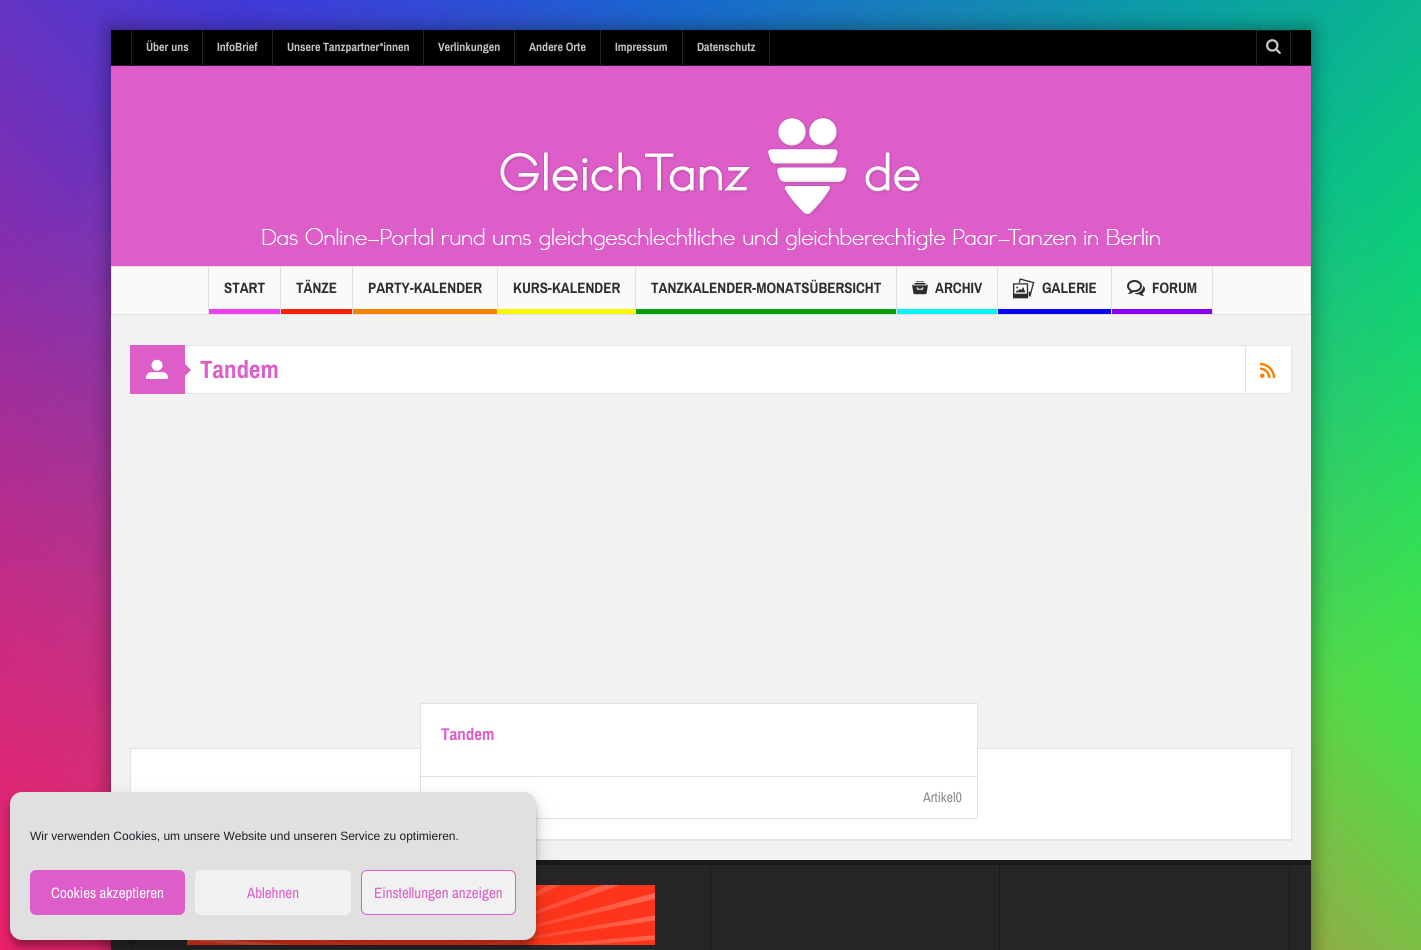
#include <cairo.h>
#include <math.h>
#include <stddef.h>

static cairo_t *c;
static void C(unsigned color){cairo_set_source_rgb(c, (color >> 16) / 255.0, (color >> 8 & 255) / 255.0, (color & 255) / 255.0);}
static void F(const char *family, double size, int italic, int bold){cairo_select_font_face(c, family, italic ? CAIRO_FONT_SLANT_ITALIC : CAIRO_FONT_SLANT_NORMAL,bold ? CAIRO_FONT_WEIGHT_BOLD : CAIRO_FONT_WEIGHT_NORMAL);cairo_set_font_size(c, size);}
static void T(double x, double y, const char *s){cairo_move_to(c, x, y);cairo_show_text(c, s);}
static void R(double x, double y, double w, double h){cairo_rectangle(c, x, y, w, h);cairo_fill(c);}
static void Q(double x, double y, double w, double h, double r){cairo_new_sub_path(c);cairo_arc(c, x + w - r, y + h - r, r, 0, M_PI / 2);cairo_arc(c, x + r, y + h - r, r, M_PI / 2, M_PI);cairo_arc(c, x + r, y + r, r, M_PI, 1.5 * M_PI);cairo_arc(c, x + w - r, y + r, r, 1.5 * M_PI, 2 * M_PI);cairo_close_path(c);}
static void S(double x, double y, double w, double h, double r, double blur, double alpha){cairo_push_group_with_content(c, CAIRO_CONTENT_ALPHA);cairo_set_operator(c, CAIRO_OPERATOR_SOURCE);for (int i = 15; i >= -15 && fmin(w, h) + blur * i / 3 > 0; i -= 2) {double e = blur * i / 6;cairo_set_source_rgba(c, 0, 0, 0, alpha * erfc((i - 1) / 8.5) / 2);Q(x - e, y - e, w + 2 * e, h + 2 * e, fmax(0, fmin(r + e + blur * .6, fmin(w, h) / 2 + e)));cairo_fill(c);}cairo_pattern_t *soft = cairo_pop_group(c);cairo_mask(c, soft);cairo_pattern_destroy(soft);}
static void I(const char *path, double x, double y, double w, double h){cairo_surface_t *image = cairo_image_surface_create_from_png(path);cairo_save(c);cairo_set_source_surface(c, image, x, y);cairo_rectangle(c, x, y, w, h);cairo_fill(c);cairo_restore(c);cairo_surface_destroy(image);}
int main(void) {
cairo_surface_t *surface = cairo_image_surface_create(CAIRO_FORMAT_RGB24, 1421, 950);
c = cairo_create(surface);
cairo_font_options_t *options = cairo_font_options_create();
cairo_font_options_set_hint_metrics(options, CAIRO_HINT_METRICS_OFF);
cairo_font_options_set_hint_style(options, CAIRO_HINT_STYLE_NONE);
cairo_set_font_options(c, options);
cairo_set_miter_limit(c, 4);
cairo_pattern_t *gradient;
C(0xffffff);
cairo_paint(c);
gradient = cairo_pattern_create_linear(1345,-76,76,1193);
cairo_pattern_add_color_stop_rgba(gradient,.1,0.051,0.949,0.349,1);
cairo_pattern_add_color_stop_rgba(gradient,.8,0.992,0.627,0.125,1);
cairo_set_source(c,gradient);
cairo_pattern_destroy(gradient);
R(0,0,1421,950);
gradient = cairo_pattern_create_linear(76,-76,1345,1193);
cairo_pattern_add_color_stop_rgba(gradient,.1,0.024,0.263,0.976,1);
cairo_pattern_add_color_stop_rgba(gradient,.8,0.024,0.263,0.976,0);
cairo_set_source(c,gradient);
cairo_pattern_destroy(gradient);
R(0,0,1421,950);
gradient = cairo_pattern_create_linear(76,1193,1345,-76);
cairo_pattern_add_color_stop_rgba(gradient,0,1,0.102,0.4,1);
cairo_pattern_add_color_stop_rgba(gradient,.7,1,0.102,0.4,0);
cairo_set_source(c,gradient);
cairo_pattern_destroy(gradient);
R(0,0,1421,950);
C(0x000000);
S(111,30,1200,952,0,10.5,.44);
C(0xf2f2f2);
R(111,315,1200,545);
C(0x000000);
R(111,30,1200,35);
C(0x222222);
R(111,65,1200,1);
R(202,30,1,35);
R(131,30,1,35);
F("Archivo Narrow",12,0,1);
C(0xc3c3c3);
T(146,51,"Über uns");
C(0x222222);
R(272,30,1,35);
C(0xc3c3c3);
T(217,51,"InfoBrief");
C(0x222222);
R(423,30,1,35);
C(0xc3c3c3);
T(287,51,"Unsere Tanzpartner*innen");
C(0x222222);
R(514,30,1,35);
C(0xc3c3c3);
T(438,51,"Verlinkungen");
C(0x222222);
R(600,30,1,35);
C(0xc3c3c3);
T(529,51,"Andere Orte");
C(0x222222);
R(682,30,1,35);
C(0xc3c3c3);
T(615,51,"Impressum");
C(0x222222);
R(769,30,1,35);
C(0xc3c3c3);
T(697,51,"Datenschutz");
C(0x222222);
R(1256,30,35,1);
R(1290,30,1,35);
R(1256,30,1,35);
I("1.png",1266,39,15,15);
C(0xdd5dc9);
R(111,66,1200,200);
I("2.png",262,228,898,22);
I("3.png",499,117,423,99);
C(0xfafafa);
cairo_rectangle(c,111.5,266.5,1199,48);
cairo_fill_preserve(c);
C(0xe1e1e1);
cairo_set_line_width(c,1);
cairo_stroke(c);
R(280,267,1,47);
R(208,267,1,47);
F("Archivo Narrow",15,0,1);
C(0x2d2d2d);
T(224,293,"START");
C(0xef40ef);
R(209,309,71,5);
C(0xe1e1e1);
R(352,267,1,47);
C(0x2d2d2d);
T(296,293,"TÄNZE");
C(0xfc2105);
R(281,309,71,5);
C(0xe1e1e1);
R(497,267,1,47);
C(0x2d2d2d);
T(368,293,"PARTY-KALENDER");
C(0xf98202);
R(353,309,144,5);
C(0xe1e1e1);
R(635,267,1,47);
C(0x2d2d2d);
T(513,293,"KURS-KALENDER");
C(0xf9f900);
R(498,309,137,5);
C(0xe1e1e1);
R(896,267,1,47);
C(0x2d2d2d);
T(651,293,"TANZKALENDER-MONATSÜBERSICHT");
C(0x00a00a);
R(636,309,260,5);
C(0xe1e1e1);
R(997,267,1,47);
I("4.png",912,281,16,14);
C(0x2d2d2d);
T(935,293,"ARCHIV");
C(0x00f7f7);
R(897,309,100,5);
C(0xe1e1e1);
R(1111,267,1,47);
I("5.png",1013,278,22,21);
C(0x2d2d2d);
T(1042,293,"GALERIE");
C(0x0800f7);
R(998,309,113,5);
C(0xe1e1e1);
R(1212,267,1,47);
I("6.png",1127,280,18,16);
C(0x2d2d2d);
T(1152,293,"FORUM");
C(0x8900f2);
R(1112,309,100,5);
C(0xffffff);
R(185,346,1106,47);
cairo_rectangle(c,130.5,345.5,1161,48);
C(0xe5e5e5);
cairo_stroke(c);
C(0xdd5dc9);
R(130,345,55,49);
I("7.png",146,359,22,20);
cairo_new_path(c);
cairo_move_to(c,185,376);
cairo_line_to(c,185,364);
cairo_line_to(c,191,370);
cairo_close_path(c);
cairo_fill(c);
F("Archivo Narrow",25,0,1);
T(200,378,"Tandem");
C(0xe1e1e1);
R(1245,346,1,46);
I("8.png",1260,362,16,16);
C(0xffffff);
cairo_rectangle(c,130.5,748.5,1161,91);
cairo_fill_preserve(c);
C(0xe1e1e1);
cairo_stroke(c);
C(0xffffff);
R(421,704,556,45);
cairo_rectangle(c,420.5,703.5,557,115);
C(0xe1e1e1);
cairo_stroke(c);
F("Archivo Narrow",17,0,1);
C(0xdd5dc9);
T(441,740,"Tandem");
C(0xe1e1e1);
R(421,776,556,1);
F("Archivo Narrow",14,0,0);
C(0x8b8b8b);
T(923,802,"Artikel0");
C(0xe5e5e5);
R(536,840,756,1);
C(0x262626);
R(111,865,1200,85);
C(0x1a1a1a);
R(536,860,775,5);
R(710,865,1,85);
R(131,940,1,10);
I("9.png",187,885,468,60);
R(999,865,1,85);
R(1289,865,1,85);
C(0x000000);
S(10,798,526,148,12,3,.23);
S(10,802,526,148,12,10,.19);
C(0xe0e0e0);
Q(10,792,526,148,12);
cairo_fill(c);
F("Liberation Sans",12,0,0);
C(0x191e23);
T(30,840,"Wir verwenden Cookies, um unsere Website und unseren Service zu optimieren.");
C(0xdd5dc9);
Q(30.5,870.5,154,44,5.5);
cairo_fill_preserve(c);
cairo_stroke(c);
F("Archivo Narrow",15,0,0);
C(0xffffff);
T(51,898,"Cookies akzeptieren");
C(0xf1f1f1);
Q(195.5,870.5,155,44,5.5);
cairo_fill_preserve(c);
cairo_stroke(c);
C(0xdd5dc9);
T(247,898,"Ablehnen");
C(0xf1f1f1);
Q(361.5,870.5,154,44,5.5);
cairo_fill_preserve(c);
C(0xdd5dc9);
cairo_stroke(c);
T(374,898,"Einstellungen anzeigen");
cairo_surface_write_to_png(surface, "o.png");
cairo_font_options_destroy(options);
cairo_destroy(c);
cairo_surface_destroy(surface);
return 0;
}
